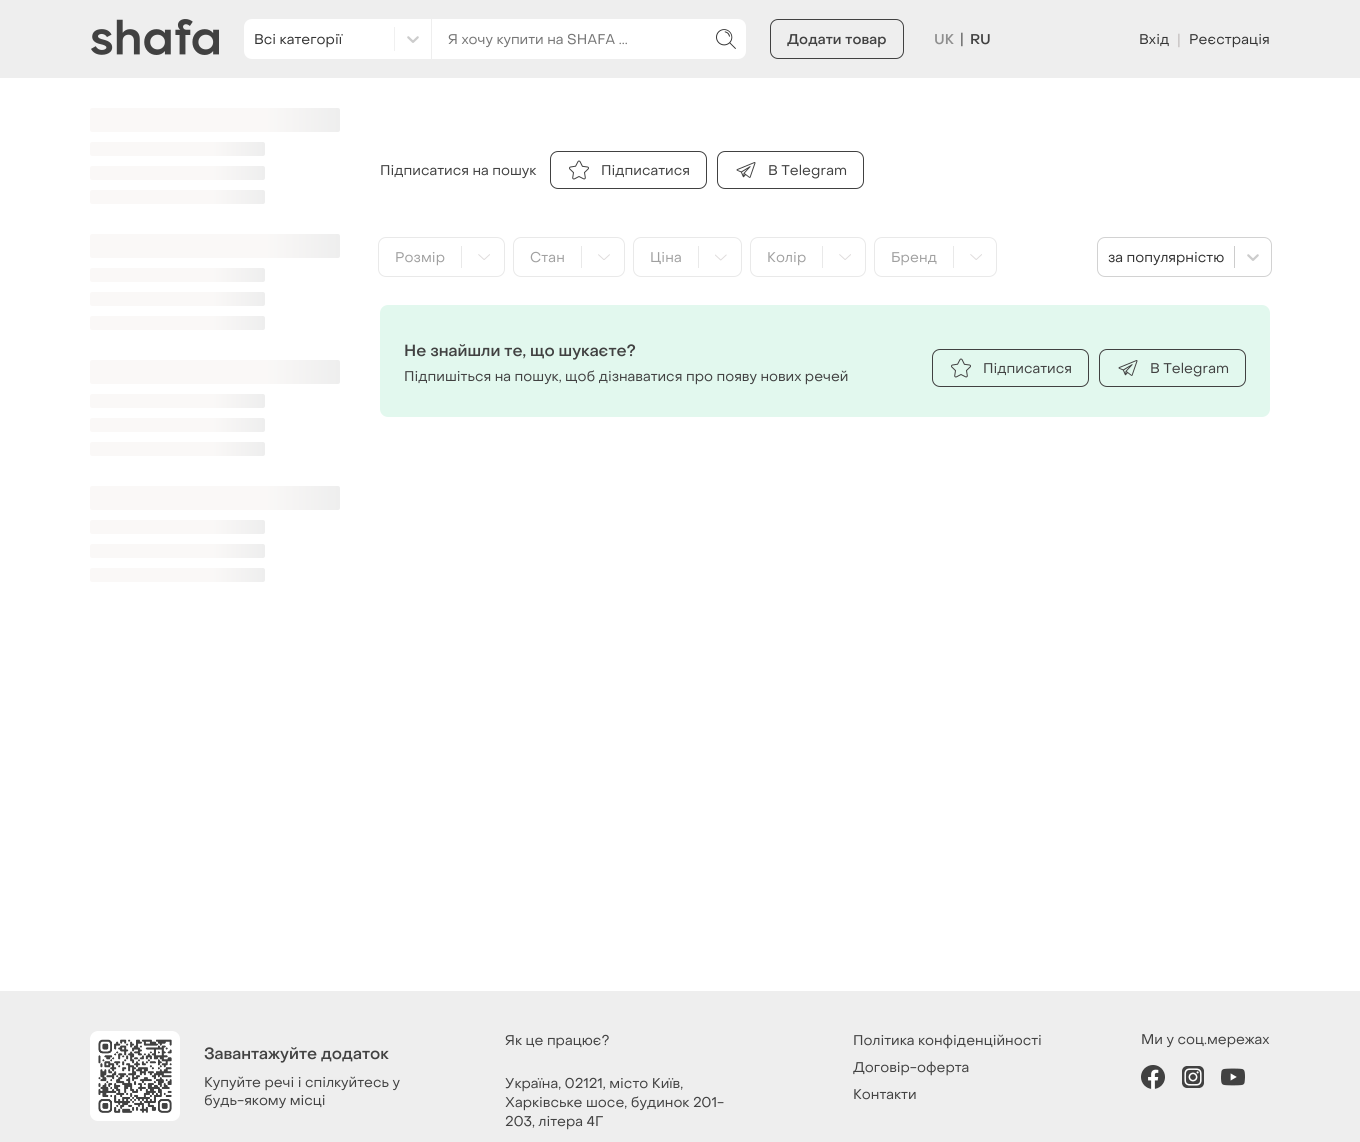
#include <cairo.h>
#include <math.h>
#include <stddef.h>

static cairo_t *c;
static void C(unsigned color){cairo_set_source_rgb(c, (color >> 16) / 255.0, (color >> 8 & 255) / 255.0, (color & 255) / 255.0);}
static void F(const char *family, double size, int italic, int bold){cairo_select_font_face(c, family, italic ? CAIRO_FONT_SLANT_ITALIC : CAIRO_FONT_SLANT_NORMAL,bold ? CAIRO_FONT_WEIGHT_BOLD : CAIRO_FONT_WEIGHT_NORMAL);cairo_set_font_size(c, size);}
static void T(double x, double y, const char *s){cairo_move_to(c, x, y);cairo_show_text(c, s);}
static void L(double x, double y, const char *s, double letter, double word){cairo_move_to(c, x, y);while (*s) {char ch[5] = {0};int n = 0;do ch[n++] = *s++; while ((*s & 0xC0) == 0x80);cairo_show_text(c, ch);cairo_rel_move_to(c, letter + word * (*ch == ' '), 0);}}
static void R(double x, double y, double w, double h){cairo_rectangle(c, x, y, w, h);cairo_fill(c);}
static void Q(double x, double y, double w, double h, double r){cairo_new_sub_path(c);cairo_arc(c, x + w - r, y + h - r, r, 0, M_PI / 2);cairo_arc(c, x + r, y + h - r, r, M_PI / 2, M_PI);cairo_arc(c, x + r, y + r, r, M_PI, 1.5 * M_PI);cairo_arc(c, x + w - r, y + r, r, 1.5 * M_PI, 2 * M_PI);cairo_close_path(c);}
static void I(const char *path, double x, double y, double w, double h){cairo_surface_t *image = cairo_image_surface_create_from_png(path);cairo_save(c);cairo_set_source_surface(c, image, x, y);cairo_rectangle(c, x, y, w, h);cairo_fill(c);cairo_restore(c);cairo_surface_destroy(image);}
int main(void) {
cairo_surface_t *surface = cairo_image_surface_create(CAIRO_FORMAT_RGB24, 1360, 1142);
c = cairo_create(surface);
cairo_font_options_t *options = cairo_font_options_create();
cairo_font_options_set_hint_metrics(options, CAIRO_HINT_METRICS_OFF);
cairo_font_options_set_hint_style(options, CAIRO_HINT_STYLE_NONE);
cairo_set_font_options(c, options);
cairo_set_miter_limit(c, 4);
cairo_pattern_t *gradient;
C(0xffffff);
cairo_paint(c);
C(0xeeeeee);
R(0,0,1360,78);
I("1.png",91,19,128,36);
C(0xffffff);
cairo_new_path(c);
cairo_move_to(c,252,19);
cairo_line_to(c,432,19);
cairo_line_to(c,432,59);
cairo_line_to(c,252,59);
cairo_curve_to(c,247.5,59,244,55.5,244,51);
cairo_line_to(c,244,27);
cairo_curve_to(c,244,22.5,247.5,19,252,19);
cairo_close_path(c);
cairo_fill(c);
C(0xeeeeee);
R(431,19,1,40);
F("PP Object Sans",14,0,0);
C(0x333333);
T(254,44,"Всі категорії");
C(0xf0f0f0);
R(394,27,1,24);
I("2.png",407,36,12,7);
C(0xffffff);
cairo_new_path(c);
cairo_move_to(c,432,19);
cairo_line_to(c,738,19);
cairo_curve_to(c,742.5,19,746,22.5,746,27);
cairo_line_to(c,746,51);
cairo_curve_to(c,746,55.5,742.5,59,738,59);
cairo_line_to(c,432,59);
cairo_close_path(c);
cairo_fill(c);
C(0x757575);
T(448,44,"Я хочу купити на SHAFA ...");
I("3.png",716,29,20,20);
Q(770.5,19.5,133,39,7.5);
C(0x414141);
cairo_set_line_width(c,1);
cairo_stroke(c);
F("PP Object Sans Medium",14,0,0);
L(787,44,"Додати товар",.1,0);
I("4.png",935,34,19,11);
F("PP Object Sans",14,0,0);
T(960,43,"|");
F("PP Object Sans Medium",14,0,0);
T(970,44,"RU");
F("PP Object Sans",14,0,0);
C(0x333333);
L(1139,44,"Вхід",.1,0);
C(0xbeb8b8);
T(1177,44,"|");
C(0x333333);
L(1189,44,"Реєстрація",.1,0);
gradient = cairo_pattern_create_linear(90,120,590,120);
cairo_pattern_add_color_stop_rgba(gradient,0,0.98,0.973,0.969,1);
cairo_pattern_add_color_stop_rgba(gradient,.35,0.98,0.973,0.969,1);
cairo_pattern_add_color_stop_rgba(gradient,.5,0.933,0.933,0.933,1);
cairo_pattern_add_color_stop_rgba(gradient,.65,0.98,0.973,0.969,1);
cairo_pattern_add_color_stop_rgba(gradient,1,0.98,0.973,0.969,1);
cairo_set_source(c,gradient);
cairo_pattern_destroy(gradient);
Q(90,108,250,24,2);
cairo_fill(c);
gradient = cairo_pattern_create_linear(90,149,440,149);
cairo_pattern_add_color_stop_rgba(gradient,0,0.98,0.973,0.969,1);
cairo_pattern_add_color_stop_rgba(gradient,.35,0.98,0.973,0.969,1);
cairo_pattern_add_color_stop_rgba(gradient,.5,0.933,0.933,0.933,1);
cairo_pattern_add_color_stop_rgba(gradient,.65,0.98,0.973,0.969,1);
cairo_pattern_add_color_stop_rgba(gradient,1,0.98,0.973,0.969,1);
cairo_set_source(c,gradient);
cairo_pattern_destroy(gradient);
Q(90,142,175,14,2);
cairo_fill(c);
gradient = cairo_pattern_create_linear(90,173,440,173);
cairo_pattern_add_color_stop_rgba(gradient,0,0.98,0.973,0.969,1);
cairo_pattern_add_color_stop_rgba(gradient,.35,0.98,0.973,0.969,1);
cairo_pattern_add_color_stop_rgba(gradient,.5,0.933,0.933,0.933,1);
cairo_pattern_add_color_stop_rgba(gradient,.65,0.98,0.973,0.969,1);
cairo_pattern_add_color_stop_rgba(gradient,1,0.98,0.973,0.969,1);
cairo_set_source(c,gradient);
cairo_pattern_destroy(gradient);
Q(90,166,175,14,2);
cairo_fill(c);
gradient = cairo_pattern_create_linear(90,197,440,197);
cairo_pattern_add_color_stop_rgba(gradient,0,0.98,0.973,0.969,1);
cairo_pattern_add_color_stop_rgba(gradient,.35,0.98,0.973,0.969,1);
cairo_pattern_add_color_stop_rgba(gradient,.5,0.933,0.933,0.933,1);
cairo_pattern_add_color_stop_rgba(gradient,.65,0.98,0.973,0.969,1);
cairo_pattern_add_color_stop_rgba(gradient,1,0.98,0.973,0.969,1);
cairo_set_source(c,gradient);
cairo_pattern_destroy(gradient);
Q(90,190,175,14,2);
cairo_fill(c);
gradient = cairo_pattern_create_linear(90,246,590,246);
cairo_pattern_add_color_stop_rgba(gradient,0,0.98,0.973,0.969,1);
cairo_pattern_add_color_stop_rgba(gradient,.35,0.98,0.973,0.969,1);
cairo_pattern_add_color_stop_rgba(gradient,.5,0.933,0.933,0.933,1);
cairo_pattern_add_color_stop_rgba(gradient,.65,0.98,0.973,0.969,1);
cairo_pattern_add_color_stop_rgba(gradient,1,0.98,0.973,0.969,1);
cairo_set_source(c,gradient);
cairo_pattern_destroy(gradient);
Q(90,234,250,24,2);
cairo_fill(c);
gradient = cairo_pattern_create_linear(90,275,440,275);
cairo_pattern_add_color_stop_rgba(gradient,0,0.98,0.973,0.969,1);
cairo_pattern_add_color_stop_rgba(gradient,.35,0.98,0.973,0.969,1);
cairo_pattern_add_color_stop_rgba(gradient,.5,0.933,0.933,0.933,1);
cairo_pattern_add_color_stop_rgba(gradient,.65,0.98,0.973,0.969,1);
cairo_pattern_add_color_stop_rgba(gradient,1,0.98,0.973,0.969,1);
cairo_set_source(c,gradient);
cairo_pattern_destroy(gradient);
Q(90,268,175,14,2);
cairo_fill(c);
gradient = cairo_pattern_create_linear(90,299,440,299);
cairo_pattern_add_color_stop_rgba(gradient,0,0.98,0.973,0.969,1);
cairo_pattern_add_color_stop_rgba(gradient,.35,0.98,0.973,0.969,1);
cairo_pattern_add_color_stop_rgba(gradient,.5,0.933,0.933,0.933,1);
cairo_pattern_add_color_stop_rgba(gradient,.65,0.98,0.973,0.969,1);
cairo_pattern_add_color_stop_rgba(gradient,1,0.98,0.973,0.969,1);
cairo_set_source(c,gradient);
cairo_pattern_destroy(gradient);
Q(90,292,175,14,2);
cairo_fill(c);
gradient = cairo_pattern_create_linear(90,323,440,323);
cairo_pattern_add_color_stop_rgba(gradient,0,0.98,0.973,0.969,1);
cairo_pattern_add_color_stop_rgba(gradient,.35,0.98,0.973,0.969,1);
cairo_pattern_add_color_stop_rgba(gradient,.5,0.933,0.933,0.933,1);
cairo_pattern_add_color_stop_rgba(gradient,.65,0.98,0.973,0.969,1);
cairo_pattern_add_color_stop_rgba(gradient,1,0.98,0.973,0.969,1);
cairo_set_source(c,gradient);
cairo_pattern_destroy(gradient);
Q(90,316,175,14,2);
cairo_fill(c);
gradient = cairo_pattern_create_linear(90,372,590,372);
cairo_pattern_add_color_stop_rgba(gradient,0,0.98,0.973,0.969,1);
cairo_pattern_add_color_stop_rgba(gradient,.35,0.98,0.973,0.969,1);
cairo_pattern_add_color_stop_rgba(gradient,.5,0.933,0.933,0.933,1);
cairo_pattern_add_color_stop_rgba(gradient,.65,0.98,0.973,0.969,1);
cairo_pattern_add_color_stop_rgba(gradient,1,0.98,0.973,0.969,1);
cairo_set_source(c,gradient);
cairo_pattern_destroy(gradient);
Q(90,360,250,24,2);
cairo_fill(c);
gradient = cairo_pattern_create_linear(90,401,440,401);
cairo_pattern_add_color_stop_rgba(gradient,0,0.98,0.973,0.969,1);
cairo_pattern_add_color_stop_rgba(gradient,.35,0.98,0.973,0.969,1);
cairo_pattern_add_color_stop_rgba(gradient,.5,0.933,0.933,0.933,1);
cairo_pattern_add_color_stop_rgba(gradient,.65,0.98,0.973,0.969,1);
cairo_pattern_add_color_stop_rgba(gradient,1,0.98,0.973,0.969,1);
cairo_set_source(c,gradient);
cairo_pattern_destroy(gradient);
Q(90,394,175,14,2);
cairo_fill(c);
gradient = cairo_pattern_create_linear(90,425,440,425);
cairo_pattern_add_color_stop_rgba(gradient,0,0.98,0.973,0.969,1);
cairo_pattern_add_color_stop_rgba(gradient,.35,0.98,0.973,0.969,1);
cairo_pattern_add_color_stop_rgba(gradient,.5,0.933,0.933,0.933,1);
cairo_pattern_add_color_stop_rgba(gradient,.65,0.98,0.973,0.969,1);
cairo_pattern_add_color_stop_rgba(gradient,1,0.98,0.973,0.969,1);
cairo_set_source(c,gradient);
cairo_pattern_destroy(gradient);
Q(90,418,175,14,2);
cairo_fill(c);
gradient = cairo_pattern_create_linear(90,449,440,449);
cairo_pattern_add_color_stop_rgba(gradient,0,0.98,0.973,0.969,1);
cairo_pattern_add_color_stop_rgba(gradient,.35,0.98,0.973,0.969,1);
cairo_pattern_add_color_stop_rgba(gradient,.5,0.933,0.933,0.933,1);
cairo_pattern_add_color_stop_rgba(gradient,.65,0.98,0.973,0.969,1);
cairo_pattern_add_color_stop_rgba(gradient,1,0.98,0.973,0.969,1);
cairo_set_source(c,gradient);
cairo_pattern_destroy(gradient);
Q(90,442,175,14,2);
cairo_fill(c);
gradient = cairo_pattern_create_linear(90,498,590,498);
cairo_pattern_add_color_stop_rgba(gradient,0,0.98,0.973,0.969,1);
cairo_pattern_add_color_stop_rgba(gradient,.35,0.98,0.973,0.969,1);
cairo_pattern_add_color_stop_rgba(gradient,.5,0.933,0.933,0.933,1);
cairo_pattern_add_color_stop_rgba(gradient,.65,0.98,0.973,0.969,1);
cairo_pattern_add_color_stop_rgba(gradient,1,0.98,0.973,0.969,1);
cairo_set_source(c,gradient);
cairo_pattern_destroy(gradient);
Q(90,486,250,24,2);
cairo_fill(c);
gradient = cairo_pattern_create_linear(90,527,440,527);
cairo_pattern_add_color_stop_rgba(gradient,0,0.98,0.973,0.969,1);
cairo_pattern_add_color_stop_rgba(gradient,.35,0.98,0.973,0.969,1);
cairo_pattern_add_color_stop_rgba(gradient,.5,0.933,0.933,0.933,1);
cairo_pattern_add_color_stop_rgba(gradient,.65,0.98,0.973,0.969,1);
cairo_pattern_add_color_stop_rgba(gradient,1,0.98,0.973,0.969,1);
cairo_set_source(c,gradient);
cairo_pattern_destroy(gradient);
Q(90,520,175,14,2);
cairo_fill(c);
gradient = cairo_pattern_create_linear(90,551,440,551);
cairo_pattern_add_color_stop_rgba(gradient,0,0.98,0.973,0.969,1);
cairo_pattern_add_color_stop_rgba(gradient,.35,0.98,0.973,0.969,1);
cairo_pattern_add_color_stop_rgba(gradient,.5,0.933,0.933,0.933,1);
cairo_pattern_add_color_stop_rgba(gradient,.65,0.98,0.973,0.969,1);
cairo_pattern_add_color_stop_rgba(gradient,1,0.98,0.973,0.969,1);
cairo_set_source(c,gradient);
cairo_pattern_destroy(gradient);
Q(90,544,175,14,2);
cairo_fill(c);
gradient = cairo_pattern_create_linear(90,575,440,575);
cairo_pattern_add_color_stop_rgba(gradient,0,0.98,0.973,0.969,1);
cairo_pattern_add_color_stop_rgba(gradient,.35,0.98,0.973,0.969,1);
cairo_pattern_add_color_stop_rgba(gradient,.5,0.933,0.933,0.933,1);
cairo_pattern_add_color_stop_rgba(gradient,.65,0.98,0.973,0.969,1);
cairo_pattern_add_color_stop_rgba(gradient,1,0.98,0.973,0.969,1);
cairo_set_source(c,gradient);
cairo_pattern_destroy(gradient);
Q(90,568,175,14,2);
cairo_fill(c);
C(0x414141);
T(380,175,"Підписатися на пошук");
Q(550.5,151.5,156,37,7.5);
cairo_stroke(c);
I("5.png",569,160,20,20);
T(601,175,"Підписатися");
Q(717.5,151.5,146,37,7.5);
cairo_stroke(c);
I("6.png",736,162,20,16);
L(768,175,"В Telegram",.1,0);
Q(378.5,237.5,126,39,7.5);
C(0xe9e9e9);
cairo_stroke(c);
C(0xa0a0a0);
L(395,262,"Розмір",.1,0);
C(0xe9e9e9);
R(461,246,1,22);
I("7.png",478,254,12,6);
Q(513.5,237.5,111,39,7.5);
cairo_stroke(c);
C(0xa0a0a0);
L(530,262,"Стан",.1,0);
C(0xe9e9e9);
R(581,246,1,22);
I("8.png",598,254,12,6);
Q(633.5,237.5,108,39,7.5);
cairo_stroke(c);
C(0xa0a0a0);
L(650,262,"Ціна",.1,0);
C(0xe9e9e9);
R(698,246,1,22);
I("9.png",715,254,12,7);
Q(750.5,237.5,115,39,7.5);
cairo_stroke(c);
C(0xa0a0a0);
L(767,262,"Колір",.1,0);
C(0xe9e9e9);
R(822,246,1,22);
I("10.png",839,254,12,6);
Q(874.5,237.5,122,39,7.5);
cairo_stroke(c);
C(0xa0a0a0);
L(891,262,"Бренд",.1,0);
C(0xe9e9e9);
R(953,246,1,22);
I("11.png",970,254,12,6);
Q(1097.5,237.5,174,39,7.5);
C(0xd2d2d2);
cairo_stroke(c);
C(0x333333);
T(1108,262,"за популярністю");
C(0xcccccc);
R(1234,246,1,22);
I("2.png",1247,254,12,7);
C(0xe2f8ee);
Q(380,305,890,112,8);
cairo_fill(c);
F("PP Object Sans Medium",16,0,0);
C(0x414141);
T(404,356,"Не знайшли те, що шукаєте?");
F("PP Object Sans",14,0,0);
T(404,381,"Підпишіться на пошук, щоб дізнаватися про появу нових речей");
Q(932.5,349.5,156,37,7.5);
cairo_stroke(c);
I("12.png",951,358,20,20);
T(983,373,"Підписатися");
Q(1099.5,349.5,146,37,7.5);
cairo_stroke(c);
I("13.png",1118,360,20,16);
L(1150,373,"В Telegram",.1,0);
C(0xeeeeee);
R(0,991,1360,151);
C(0x414141);
T(505,1045,"Як це працює?");
T(505,1088,"Україна, 02121, місто Київ,");
T(505,1107,"Харківське шосе, будинок 201-");
T(505,1126,"203, літера 4Г");
T(853,1045,"Політика конфіденційності");
T(853,1072,"Договір-оферта");
T(853,1099,"Контакти");
T(1141,1044,"Ми у соц.мережах");
I("14.png",1141,1065,24,24);
I("15.png",1182,1066,22,22);
I("16.png",1221,1068,24,18);
I("17.png",90,1031,90,90);
F("PP Object Sans Medium",16,0,0);
T(204,1059,"Завантажуйте додаток");
F("PP Object Sans",14,0,0);
T(204,1087,"Купуйте речі і спілкуйтесь у");
T(204,1105,"будь-якому місці");
cairo_surface_write_to_png(surface, "o.png");
cairo_font_options_destroy(options);
cairo_destroy(c);
cairo_surface_destroy(surface);
return 0;
}
